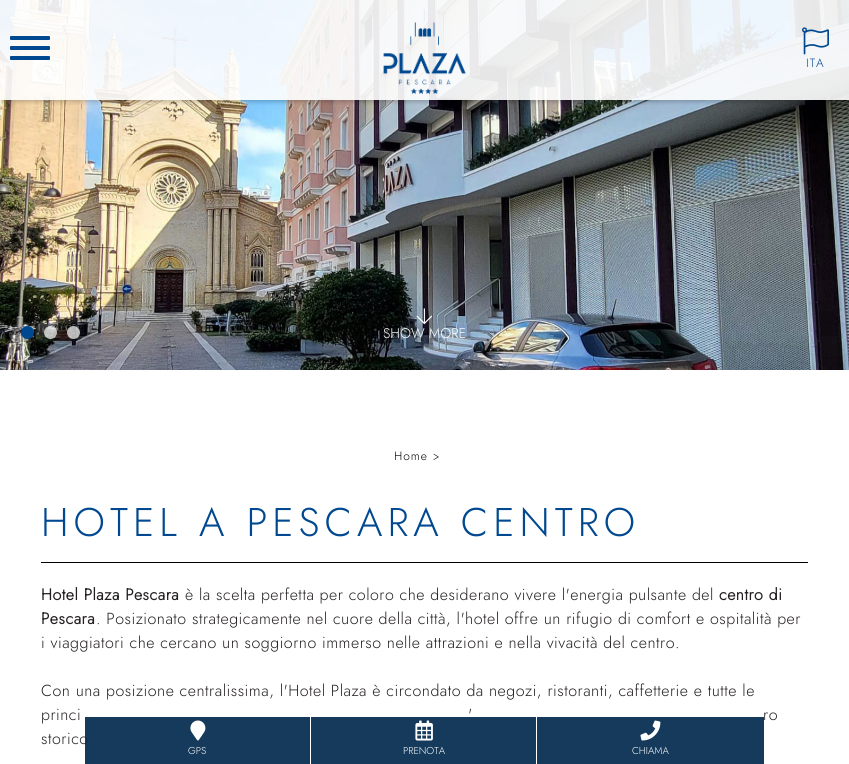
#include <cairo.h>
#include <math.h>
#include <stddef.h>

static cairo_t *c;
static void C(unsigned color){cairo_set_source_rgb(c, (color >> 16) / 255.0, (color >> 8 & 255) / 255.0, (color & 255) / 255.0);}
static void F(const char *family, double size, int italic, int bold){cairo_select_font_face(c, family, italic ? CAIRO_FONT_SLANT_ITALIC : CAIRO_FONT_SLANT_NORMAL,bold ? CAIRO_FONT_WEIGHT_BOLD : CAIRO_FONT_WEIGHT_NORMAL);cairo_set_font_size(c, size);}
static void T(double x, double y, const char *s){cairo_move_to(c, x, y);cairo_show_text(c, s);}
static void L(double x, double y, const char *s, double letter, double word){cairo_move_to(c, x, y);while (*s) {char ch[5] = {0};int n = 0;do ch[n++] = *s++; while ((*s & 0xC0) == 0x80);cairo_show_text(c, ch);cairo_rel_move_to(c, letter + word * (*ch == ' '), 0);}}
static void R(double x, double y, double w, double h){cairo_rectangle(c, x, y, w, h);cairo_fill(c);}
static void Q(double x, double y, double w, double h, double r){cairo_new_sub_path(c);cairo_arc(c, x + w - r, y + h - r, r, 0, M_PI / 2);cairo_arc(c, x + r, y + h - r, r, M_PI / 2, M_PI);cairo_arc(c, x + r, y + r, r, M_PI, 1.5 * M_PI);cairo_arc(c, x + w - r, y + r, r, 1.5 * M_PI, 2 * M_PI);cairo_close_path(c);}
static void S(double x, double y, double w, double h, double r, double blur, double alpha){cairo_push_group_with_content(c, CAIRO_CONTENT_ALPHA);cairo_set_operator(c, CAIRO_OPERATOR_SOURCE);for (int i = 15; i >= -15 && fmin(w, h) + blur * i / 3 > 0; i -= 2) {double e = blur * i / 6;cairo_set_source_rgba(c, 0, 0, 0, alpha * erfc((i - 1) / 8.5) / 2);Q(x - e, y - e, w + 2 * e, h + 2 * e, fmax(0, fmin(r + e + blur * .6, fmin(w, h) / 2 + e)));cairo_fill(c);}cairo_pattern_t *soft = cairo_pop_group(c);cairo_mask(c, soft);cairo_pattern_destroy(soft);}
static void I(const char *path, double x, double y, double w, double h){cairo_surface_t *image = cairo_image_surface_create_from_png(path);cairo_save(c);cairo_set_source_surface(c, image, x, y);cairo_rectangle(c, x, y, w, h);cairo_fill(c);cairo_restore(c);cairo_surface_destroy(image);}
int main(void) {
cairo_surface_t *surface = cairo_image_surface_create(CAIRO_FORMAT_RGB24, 849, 764);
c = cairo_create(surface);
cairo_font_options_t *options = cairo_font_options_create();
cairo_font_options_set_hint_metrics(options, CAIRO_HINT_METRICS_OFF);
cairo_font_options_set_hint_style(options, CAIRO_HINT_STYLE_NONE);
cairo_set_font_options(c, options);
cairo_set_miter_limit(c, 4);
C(0xffffff);
cairo_paint(c);
I("3.png",0,0,849,370);
cairo_save(c);
cairo_rectangle(c,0,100,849,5);
cairo_clip(c);
C(0x000000);
S(2,2,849,100,0,2,.2);
cairo_restore(c);
cairo_set_source_rgba(c,1,1,1,0.9);
R(0,0,849,100);
C(0x004990);
Q(10,36,40,4,1);
cairo_fill(c);
Q(10,46,40,4,1);
cairo_fill(c);
Q(10,56,40,4,1);
cairo_fill(c);
I("1.png",383,9,83,85);
I("2.png",802,27,27,28);
F("Jost Light",12,0,0);
L(806,67,"ITA",1,0);
cairo_new_path(c);
cairo_arc(c,27.5,332.5,6.5,0,2 * M_PI);
cairo_fill(c);
cairo_set_source_rgba(c,1,1,1,0.7);
cairo_arc(c,50.5,332.5,6.5,0,2 * M_PI);
cairo_fill(c);
cairo_arc(c,73.5,332.5,6.5,0,2 * M_PI);
cairo_fill(c);
I("4.png",416,308,17,17);
F("Jost Light",14,0,0);
C(0xffffff);
T(383,338,"SHOW MORE");
F("Jost Light",12,0,0);
C(0x000000);
L(394,460,"Home",1,0);
F("Raleway Light",12,0,0);
L(433,460,">",1,0);
R(41,562,767,1);
F("Jost Light",40,0,0);
C(0x004990);
L(41,536,"HOTEL A PESCARA CENTRO",5,0);
F("Jost",16,0,1);
C(0x231f20);
L(41,600,"Hotel Plaza Pescara",.5,0);
F("Jost Light",16,0,0);
L(185,600,"è la scelta perfetta per coloro che desiderano vivere l'energia pulsante del",.5,0);
F("Jost",16,0,1);
L(719,600,"centro di",.5,0);
L(41,624,"Pescara",.5,0);
F("Jost Light",16,0,0);
L(96,624,". Posizionato strategicamente nel cuore della città, l'hotel offre un rifugio di comfort e ospitalità per",.5,0);
L(41,648,"i viaggiatori che cercano un soggiorno immerso nelle attrazioni e nella vivacità del centro.",.5,0);
L(41,696,"Con una posizione centralissima, l'Hotel Plaza è circondato da negozi, ristoranti, caffetterie e tutte le",.5,0);
L(41,720,"princi",.5,0);
L(468,720,"'",.5,0);
L(763,720,"ro",.5,0);
L(41,744,"storico",.5,0);
cairo_set_source_rgba(c,0.02,0.173,0.318,0.93);
R(85,717,679,47);
C(0xffffff);
R(310,717,1,47);
I("5.png",190,720,16,21);
F("Jost Light",10,0,0);
T(188,754,"GPS");
R(536,717,1,47);
I("6.png",415,720,18,21);
T(403,754,"PRENOTA");
I("7.png",640,720,21,21);
T(632,754,"CHIAMA");
cairo_surface_write_to_png(surface, "o.png");
cairo_font_options_destroy(options);
cairo_destroy(c);
cairo_surface_destroy(surface);
return 0;
}
